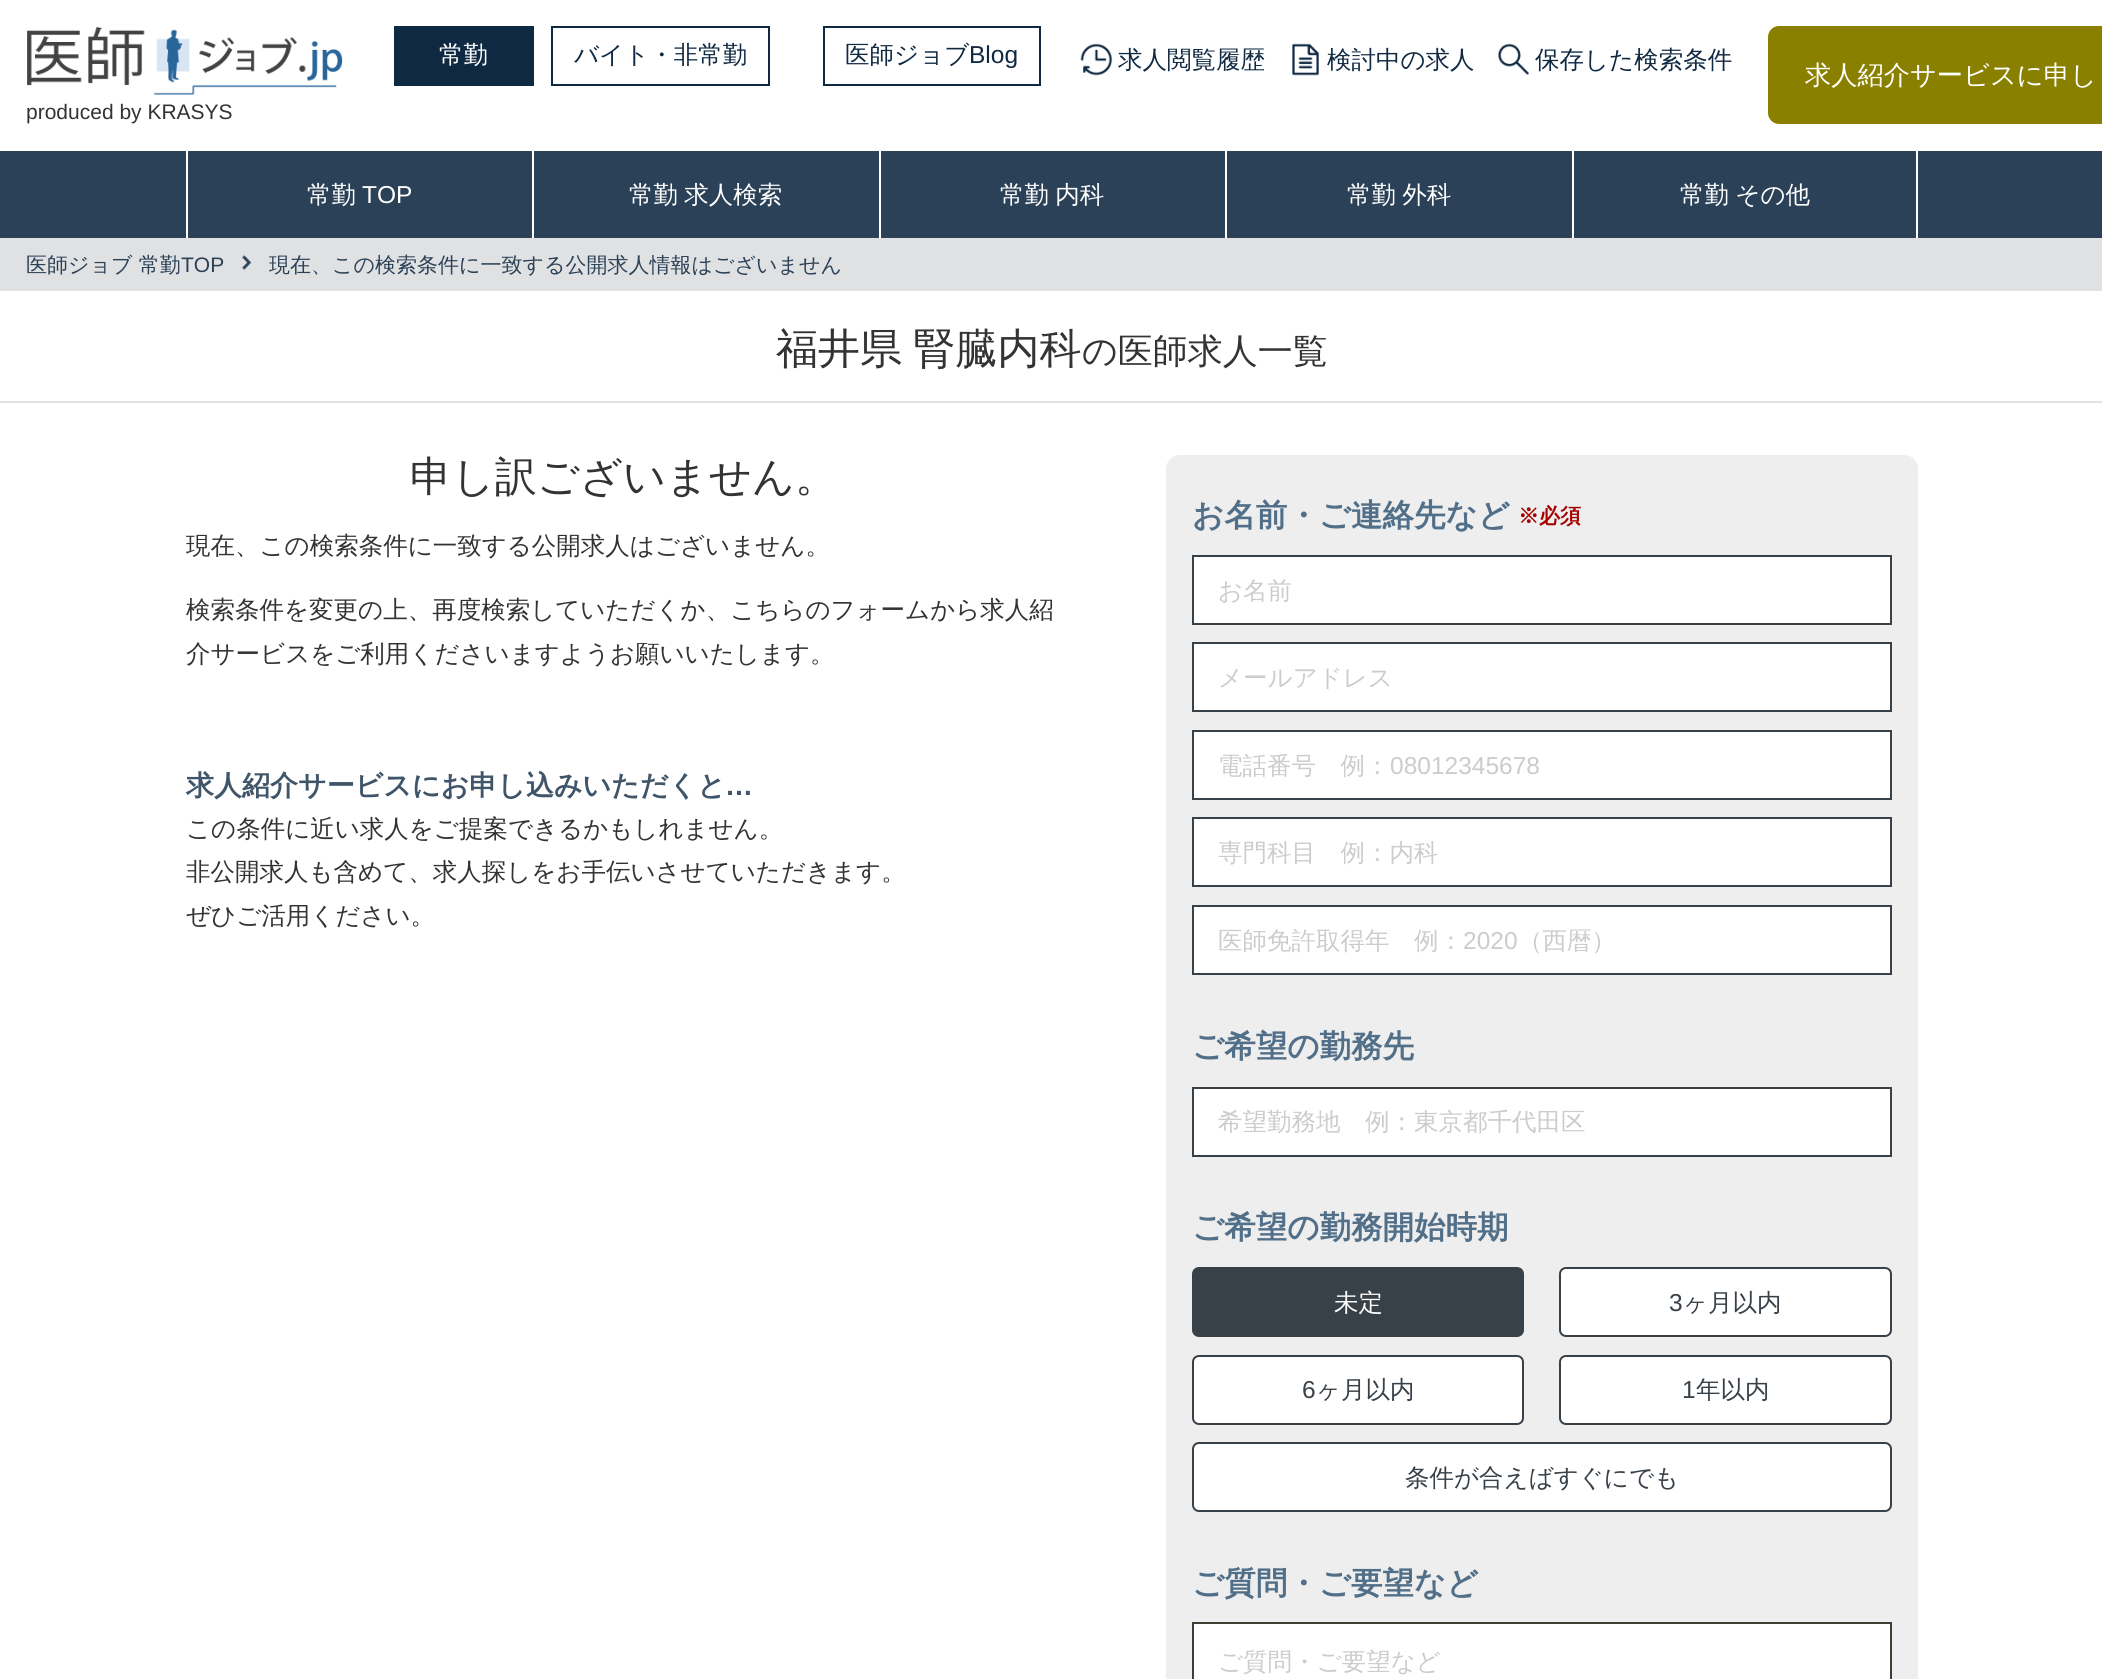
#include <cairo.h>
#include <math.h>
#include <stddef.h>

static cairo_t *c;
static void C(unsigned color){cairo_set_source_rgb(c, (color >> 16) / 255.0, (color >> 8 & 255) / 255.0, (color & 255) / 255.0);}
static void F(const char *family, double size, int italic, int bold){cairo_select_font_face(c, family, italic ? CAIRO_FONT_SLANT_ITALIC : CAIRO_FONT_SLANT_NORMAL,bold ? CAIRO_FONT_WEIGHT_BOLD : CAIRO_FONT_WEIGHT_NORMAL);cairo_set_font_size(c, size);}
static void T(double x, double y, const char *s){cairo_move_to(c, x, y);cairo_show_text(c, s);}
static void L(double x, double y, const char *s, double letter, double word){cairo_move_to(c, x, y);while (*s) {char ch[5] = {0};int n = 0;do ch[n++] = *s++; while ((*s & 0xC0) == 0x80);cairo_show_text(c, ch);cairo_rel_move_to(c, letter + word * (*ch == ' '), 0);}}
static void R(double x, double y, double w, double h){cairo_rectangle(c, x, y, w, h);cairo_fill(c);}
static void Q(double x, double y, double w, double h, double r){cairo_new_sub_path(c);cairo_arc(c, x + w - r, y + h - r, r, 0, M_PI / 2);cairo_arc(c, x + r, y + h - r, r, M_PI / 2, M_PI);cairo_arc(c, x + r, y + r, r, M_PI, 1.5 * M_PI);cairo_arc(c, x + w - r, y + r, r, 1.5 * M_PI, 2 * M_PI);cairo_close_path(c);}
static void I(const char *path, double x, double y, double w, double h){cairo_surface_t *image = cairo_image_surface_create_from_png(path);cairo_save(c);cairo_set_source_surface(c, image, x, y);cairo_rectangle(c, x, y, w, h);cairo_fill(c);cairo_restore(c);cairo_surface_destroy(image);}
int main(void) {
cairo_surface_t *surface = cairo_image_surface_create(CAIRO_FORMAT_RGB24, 2102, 1679);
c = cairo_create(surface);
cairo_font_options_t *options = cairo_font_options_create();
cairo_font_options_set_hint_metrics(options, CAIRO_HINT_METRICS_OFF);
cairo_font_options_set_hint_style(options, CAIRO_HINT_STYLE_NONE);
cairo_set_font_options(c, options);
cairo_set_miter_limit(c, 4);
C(0xffffff);
cairo_paint(c);
C(0x102942);
R(394,26,140,60);
F("WenQuanYi Zen Hei Medium",24.5,0,0);
C(0xffffff);
T(439,63,"常勤");
cairo_rectangle(c,552,27,217,58);
C(0x102942);
cairo_stroke(c);
T(574,63,"バイト・非常勤");
cairo_rectangle(c,824,27,216,58);
cairo_stroke(c);
T(845,63,"医師ジョブ");
F("Liberation Sans",24.5,0,0);
T(969,63,"Blog");
I("1.png",27,27,316,68);
F("Liberation Sans",21,0,0);
C(0x333333);
T(26,119,"produced by KRASYS");
I("2.png",1080,43,33,33);
F("WenQuanYi Zen Hei Medium",24.5,0,0);
C(0x102942);
T(1118,68,"求人閲覧履歴");
I("3.png",1292,43,27,33);
T(1327,68,"検討中の求人");
I("4.png",1498,43,31,32);
T(1535,68,"保存した検索条件");
C(0x8a8000);
cairo_new_path(c);
cairo_move_to(c,1779,26);
cairo_line_to(c,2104,26);
cairo_line_to(c,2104,124);
cairo_line_to(c,1779,124);
cairo_curve_to(c,1773,124,1768,119,1768,113);
cairo_line_to(c,1768,37);
cairo_curve_to(c,1768,31,1773,26,1779,26);
cairo_close_path(c);
cairo_fill(c);
F("WenQuanYi Zen Hei Medium",26.25,0,0);
C(0xffffff);
T(1805,84,"求人紹介サービスに申し");
C(0x2b4157);
R(0,151,2102,87);
C(0xffffff);
R(186,151,2,87);
F("WenQuanYi Zen Hei Medium",24.5,0,0);
T(307,203,"常勤");
F("Liberation Sans",24.5,0,0);
T(362,203,"TOP");
R(532,151,2,87);
F("WenQuanYi Zen Hei Medium",24.5,0,0);
L(629,203,"常勤 求人検索",0,-1);
R(879,151,2,87);
L(1000,203,"常勤 内科",0,-1);
R(1225,151,2,87);
L(1347,203,"常勤 外科",0,-1);
R(1916,151,2,87);
R(1572,151,2,87);
L(1680,203,"常勤 その他",0,-1);
C(0xe0e1e2);
R(0,238,2102,53);
F("WenQuanYi Zen Hei Medium",21,0,0);
C(0x2b4157);
T(26,272,"医師ジョブ 常勤");
F("Liberation Sans",21,0,0);
T(181,272,"TOP");
I("5.png",242,255,10,15);
F("WenQuanYi Zen Hei Medium",21,0,0);
T(269,272,"現在、この検索条件に一致する公開求人情報はございません");
C(0xe0e1e2);
R(0,401,2102,2);
F("WenQuanYi Zen Hei Medium",42,0,0);
C(0x333333);
L(776,363,"福井県 腎臓内科",0,-1);
F("WenQuanYi Zen Hei Medium",35,0,0);
T(1082,363,"の医師求人一覧");
F("WenQuanYi Zen Hei Medium",42,0,0);
T(410,491,"申し訳ございません。");
F("WenQuanYi Zen Hei Medium",24.5,0,0);
T(186,554,"現在、この検索条件に一致する公開求人はございません。");
T(186,618,"検索条件を変更の上、再度検索していただくか、こちらのフォームから求人紹");
T(186,662,"介サービスをご利用くださいますようお願いいたします。");
F("WenQuanYi Zen Hei",28,0,1);
C(0x405569);
T(186,795,"求人紹介サービスにお申し込みいただくと");
F("Liberation Sans",28,0,1);
T(725,795,"…");
F("WenQuanYi Zen Hei Medium",24.5,0,0);
C(0x333333);
T(186,837,"この条件に近い求人をご提案できるかもしれません。");
T(186,880,"非公開求人も含めて、求人探しをお手伝いさせていただきます。");
T(186,924,"ぜひご活用ください。");
C(0xeeeeee);
Q(1166,455,752,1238,14);
cairo_fill(c);
F("WenQuanYi Zen Hei",31.5,0,1);
C(0x516f88);
T(1192,526,"お名前・ご連絡先など");
F("WenQuanYi Zen Hei",21,0,1);
C(0xa40000);
T(1518,523,"※必須");
C(0xffffff);
cairo_rectangle(c,1193,556,698,68);
cairo_fill_preserve(c);
C(0x384048);
cairo_stroke(c);
F("WenQuanYi Zen Hei Medium",24.5,0,0);
C(0xcccccc);
T(1218,599,"お名前");
C(0xffffff);
cairo_rectangle(c,1193,643,698,68);
cairo_fill_preserve(c);
C(0x384048);
cairo_stroke(c);
C(0xcccccc);
T(1218,686,"メールアドレス");
C(0xffffff);
cairo_rectangle(c,1193,731,698,68);
cairo_fill_preserve(c);
C(0x384048);
cairo_stroke(c);
C(0xcccccc);
T(1218,774,"電話番号　例：");
F("Liberation Sans",24.5,0,0);
T(1390,774,"08012345678");
C(0xffffff);
cairo_rectangle(c,1193,818,698,68);
cairo_fill_preserve(c);
C(0x384048);
cairo_stroke(c);
F("WenQuanYi Zen Hei Medium",24.5,0,0);
C(0xcccccc);
T(1218,861,"専門科目　例：内科");
C(0xffffff);
cairo_rectangle(c,1193,906,698,68);
cairo_fill_preserve(c);
C(0x384048);
cairo_stroke(c);
C(0xcccccc);
T(1218,949,"医師免許取得年　例：");
F("Liberation Sans",24.5,0,0);
T(1463,949,"2020");
F("WenQuanYi Zen Hei Medium",24.5,0,0);
T(1518,949,"（西暦）");
F("WenQuanYi Zen Hei",31.5,0,1);
C(0x516f88);
T(1192,1057,"ご希望の勤務先");
C(0xffffff);
cairo_rectangle(c,1193,1088,698,68);
cairo_fill_preserve(c);
C(0x384048);
cairo_stroke(c);
F("WenQuanYi Zen Hei Medium",24.5,0,0);
C(0xcccccc);
T(1218,1130,"希望勤務地　例：東京都千代田区");
F("WenQuanYi Zen Hei",31.5,0,1);
C(0x516f88);
T(1192,1238,"ご希望の勤務開始時期");
C(0x384048);
Q(1193,1268,330,68,6);
cairo_fill_preserve(c);
cairo_stroke(c);
F("WenQuanYi Zen Hei Medium",24.5,0,0);
C(0xffffff);
T(1334,1311,"未定");
Q(1560,1268,331,68,6);
cairo_fill_preserve(c);
C(0x384048);
cairo_stroke(c);
F("Liberation Sans",24.5,0,0);
T(1669,1311,"3");
F("WenQuanYi Zen Hei Medium",24.5,0,0);
T(1683,1311,"ヶ月以内");
C(0xffffff);
Q(1193,1356,330,68,6);
cairo_fill_preserve(c);
C(0x384048);
cairo_stroke(c);
F("Liberation Sans",24.5,0,0);
T(1302,1398,"6");
F("WenQuanYi Zen Hei Medium",24.5,0,0);
T(1316,1398,"ヶ月以内");
C(0xffffff);
Q(1560,1356,331,68,6);
cairo_fill_preserve(c);
C(0x384048);
cairo_stroke(c);
F("Liberation Sans",24.5,0,0);
T(1682,1398,"1");
F("WenQuanYi Zen Hei Medium",24.5,0,0);
T(1696,1398,"年以内");
C(0xffffff);
Q(1193,1443,698,68,6);
cairo_fill_preserve(c);
C(0x384048);
cairo_stroke(c);
T(1405,1486,"条件が合えばすぐにでも");
F("WenQuanYi Zen Hei",31.5,0,1);
C(0x516f88);
T(1192,1594,"ご質問・ご要望など");
C(0xffffff);
cairo_rectangle(c,1193,1623,698,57);
cairo_fill_preserve(c);
C(0x3a4032);
cairo_stroke(c);
F("WenQuanYi Zen Hei Medium",24.5,0,0);
C(0xcccccc);
T(1218,1670,"ご質問・ご要望など");
cairo_surface_write_to_png(surface, "o.png");
cairo_font_options_destroy(options);
cairo_destroy(c);
cairo_surface_destroy(surface);
return 0;
}
